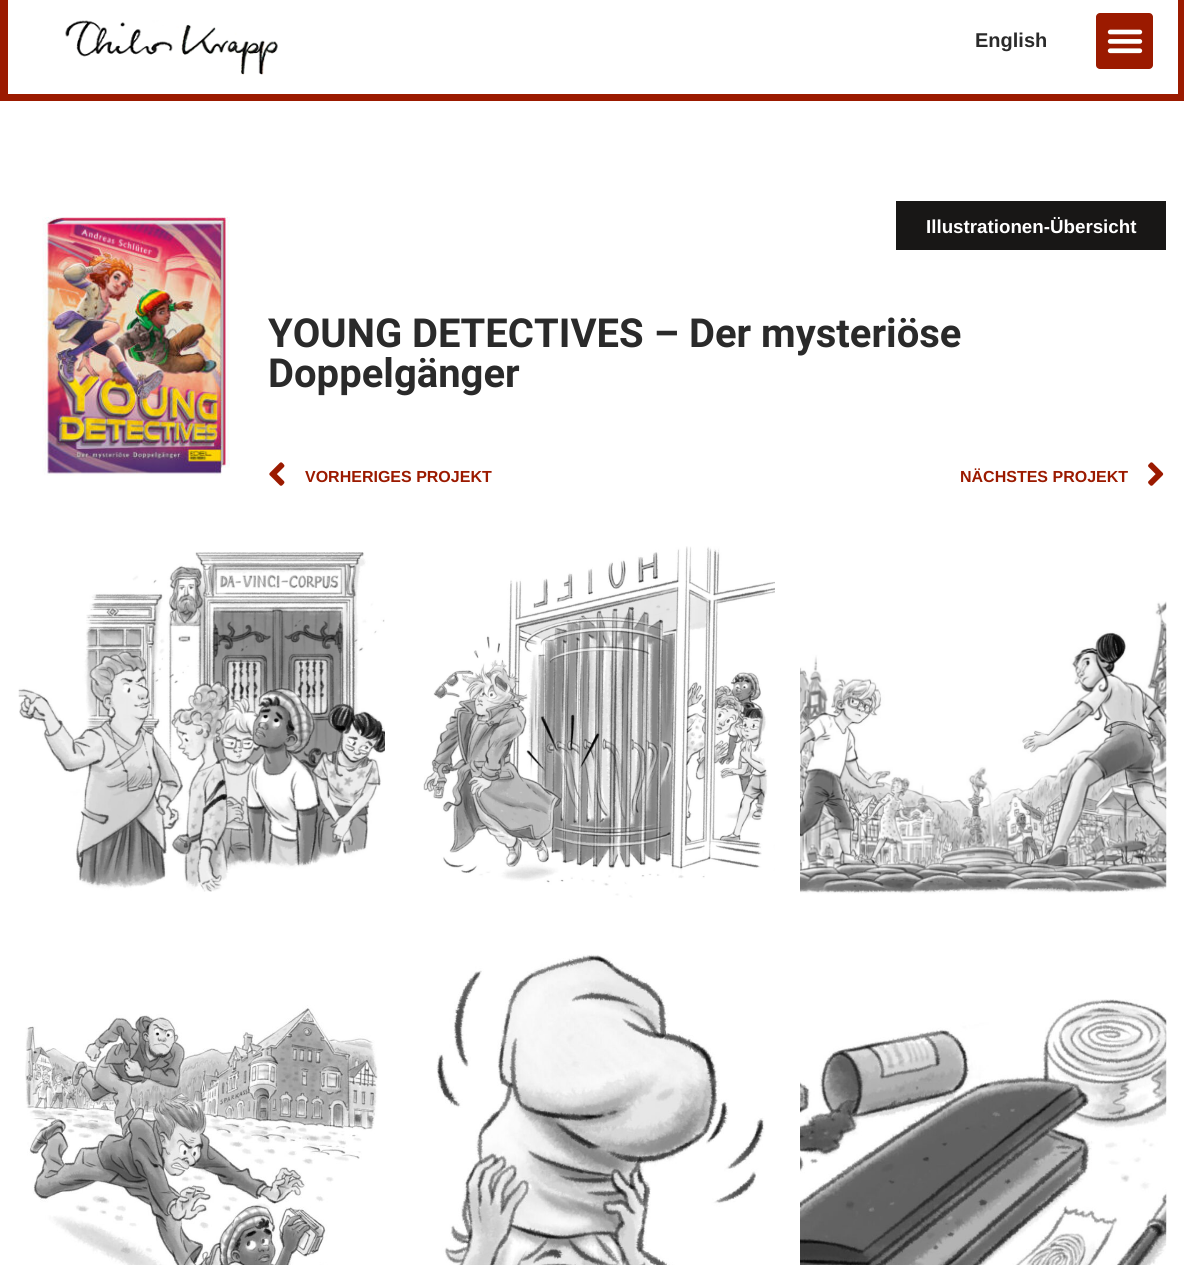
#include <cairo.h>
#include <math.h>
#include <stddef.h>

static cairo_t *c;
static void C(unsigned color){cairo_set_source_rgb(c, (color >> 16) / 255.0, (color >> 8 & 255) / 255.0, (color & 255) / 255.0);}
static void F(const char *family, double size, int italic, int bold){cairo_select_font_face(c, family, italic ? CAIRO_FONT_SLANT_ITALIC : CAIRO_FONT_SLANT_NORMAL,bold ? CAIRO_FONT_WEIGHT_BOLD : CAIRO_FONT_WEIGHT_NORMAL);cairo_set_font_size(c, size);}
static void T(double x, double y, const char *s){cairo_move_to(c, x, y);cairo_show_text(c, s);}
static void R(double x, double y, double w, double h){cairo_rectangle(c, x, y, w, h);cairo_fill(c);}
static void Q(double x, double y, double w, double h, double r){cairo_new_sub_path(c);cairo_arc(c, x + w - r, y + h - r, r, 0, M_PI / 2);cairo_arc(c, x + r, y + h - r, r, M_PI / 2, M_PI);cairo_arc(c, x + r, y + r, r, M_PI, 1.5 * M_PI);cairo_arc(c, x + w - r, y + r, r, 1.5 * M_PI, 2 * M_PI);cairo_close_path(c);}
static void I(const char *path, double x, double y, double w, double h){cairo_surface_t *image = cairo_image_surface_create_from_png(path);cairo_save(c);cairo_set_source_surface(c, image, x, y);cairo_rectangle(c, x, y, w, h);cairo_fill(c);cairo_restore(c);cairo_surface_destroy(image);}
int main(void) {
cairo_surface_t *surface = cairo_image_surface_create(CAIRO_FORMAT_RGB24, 1184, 1265);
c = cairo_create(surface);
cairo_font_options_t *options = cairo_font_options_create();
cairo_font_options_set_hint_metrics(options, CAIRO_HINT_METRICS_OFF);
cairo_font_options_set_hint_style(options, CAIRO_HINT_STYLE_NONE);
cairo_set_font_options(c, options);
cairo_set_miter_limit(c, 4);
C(0xffffff);
cairo_paint(c);
C(0x9b1a00);
R(1178,0,6,101);
R(0,94,1184,7);
R(0,0,8,101);
I("1.png",65,20,213,55);
F("Liberation Sans",20,0,1);
C(0x2a2a2a);
T(975,47,"English");
C(0x9b1a00);
Q(1096,13,57,56,4);
cairo_fill(c);
I("2.png",1107,29,36,25);
I("3.png",42,217,188,259);
C(0x181716);
R(896,201,270,49);
F("Liberation Sans",18.75,0,1);
C(0xffffff);
T(926,233,"Illustrationen-Übersicht");
F("Roboto",40,0,1);
C(0x2a2a2a);
T(268,347,"YOUNG DETECTIVES – Der mysteriöse");
T(268,387,"Doppelgänger");
I("4.png",269,462,16,24);
F("Liberation Sans",16,0,1);
C(0x9b1a00);
T(305,482,"VORHERIGES PROJEKT");
T(960,482,"NÄCHSTES PROJEKT");
I("5.png",1148,462,16,24);
I("6.png",18,552,367,340);
I("7.png",423,546,352,352);
I("8.png",800,601,367,293);
I("9.png",25,1005,353,260);
I("10.png",436,954,329,311);
I("11.png",800,999,367,266);
cairo_surface_write_to_png(surface, "o.png");
cairo_font_options_destroy(options);
cairo_destroy(c);
cairo_surface_destroy(surface);
return 0;
}
